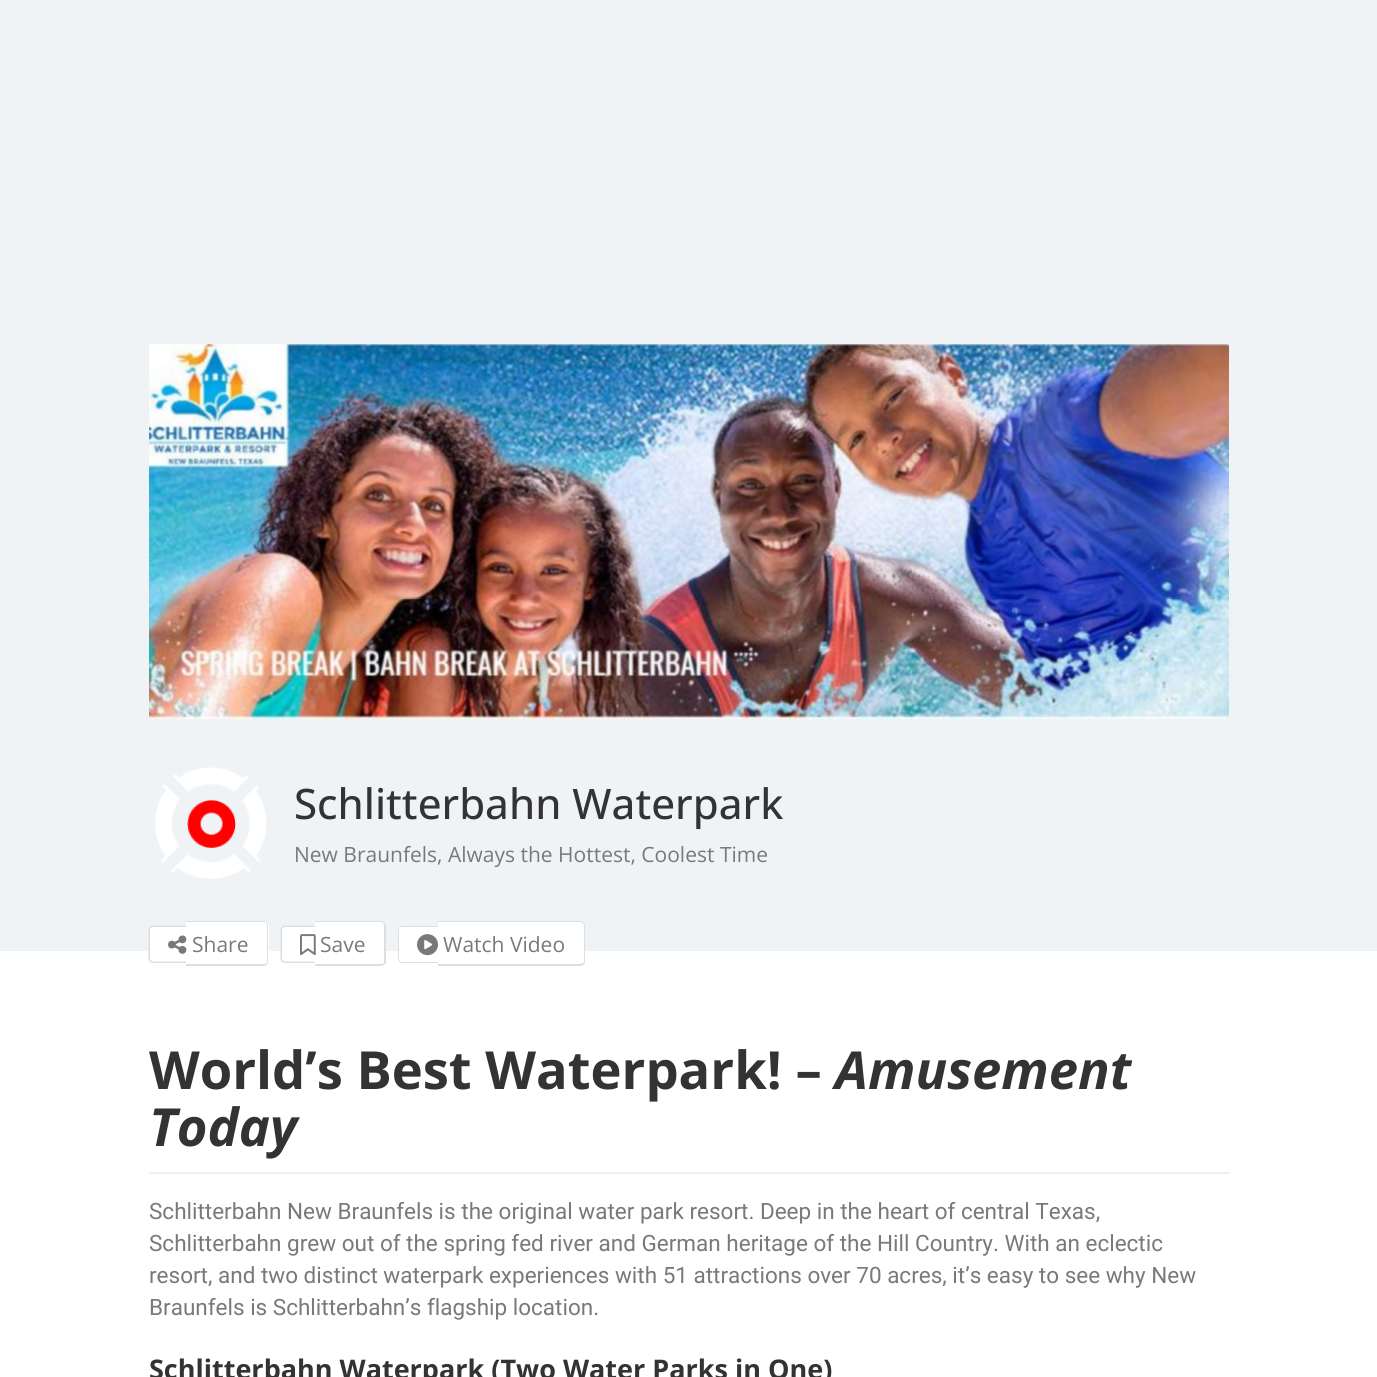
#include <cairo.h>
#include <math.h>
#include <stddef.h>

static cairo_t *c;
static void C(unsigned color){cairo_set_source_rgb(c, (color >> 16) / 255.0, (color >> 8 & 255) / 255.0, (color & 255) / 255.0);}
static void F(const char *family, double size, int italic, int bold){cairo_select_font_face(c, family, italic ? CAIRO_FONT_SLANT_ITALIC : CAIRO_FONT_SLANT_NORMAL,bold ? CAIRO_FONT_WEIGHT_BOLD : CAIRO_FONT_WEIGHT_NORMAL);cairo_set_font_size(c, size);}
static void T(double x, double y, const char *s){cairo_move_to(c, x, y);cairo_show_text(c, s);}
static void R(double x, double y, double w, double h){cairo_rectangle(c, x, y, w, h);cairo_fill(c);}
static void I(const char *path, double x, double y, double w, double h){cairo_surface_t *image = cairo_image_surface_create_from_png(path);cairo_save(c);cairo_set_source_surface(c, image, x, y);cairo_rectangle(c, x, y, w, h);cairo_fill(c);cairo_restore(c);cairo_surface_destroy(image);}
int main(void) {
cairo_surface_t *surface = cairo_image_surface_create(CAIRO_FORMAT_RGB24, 1377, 1377);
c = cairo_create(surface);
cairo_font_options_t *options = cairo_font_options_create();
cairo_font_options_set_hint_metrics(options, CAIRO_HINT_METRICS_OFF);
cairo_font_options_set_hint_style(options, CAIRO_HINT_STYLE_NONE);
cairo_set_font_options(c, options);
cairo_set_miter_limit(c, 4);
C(0xffffff);
cairo_paint(c);
C(0xf0f3f6);
R(0,0,1377,951);
I("1.png",149,344,1080,375);
I("2.png",155,767,112,112);
F("Open Sans Medium",42,0,0);
C(0x333333);
T(294,819,"Schlitterbahn Waterpark");
F("Open Sans",21,0,0);
C(0x797979);
T(294,862,"New Braunfels, Always the Hottest, Coolest Time");
C(0xffffff);
cairo_new_path(c);
cairo_move_to(c,154,926);
cairo_line_to(c,186,926);
cairo_line_to(c,186,963);
cairo_line_to(c,154,963);
cairo_curve_to(c,151,963,149,961,149,958);
cairo_line_to(c,149,931);
cairo_curve_to(c,149,928,151,926,154,926);
cairo_close_path(c);
cairo_fill(c);
C(0xdedede);
cairo_set_fill_rule(c,CAIRO_FILL_RULE_EVEN_ODD);
cairo_new_path(c);
cairo_move_to(c,153,925.5);
cairo_line_to(c,186,925.5);
cairo_line_to(c,186,963);
cairo_line_to(c,153,963);
cairo_curve_to(c,150.5,963,148.5,961,148.5,958.5);
cairo_line_to(c,148.5,930);
cairo_curve_to(c,148.5,927.5,150.5,925.5,153,925.5);
cairo_close_path(c);
cairo_move_to(c,153,927);
cairo_line_to(c,186,927);
cairo_line_to(c,186,961.5);
cairo_line_to(c,153,961.5);
cairo_curve_to(c,151.5,961.5,150,960,150,958.5);
cairo_line_to(c,150,930);
cairo_curve_to(c,150,928.5,151.5,927,153,927);
cairo_close_path(c);
cairo_fill(c);
C(0xffffff);
cairo_new_path(c);
cairo_move_to(c,186,921);
cairo_line_to(c,264,921);
cairo_curve_to(c,267,921,269,923,269,926);
cairo_line_to(c,269,961);
cairo_curve_to(c,269,964,267,966,264,966);
cairo_line_to(c,186,966);
cairo_close_path(c);
cairo_fill(c);
C(0xdedede);
cairo_new_path(c);
cairo_move_to(c,186,921);
cairo_line_to(c,264,921);
cairo_curve_to(c,266,921,268,923,268,926);
cairo_line_to(c,268,962);
cairo_curve_to(c,268,964,266,966,264,966);
cairo_line_to(c,186,966);
cairo_close_path(c);
cairo_move_to(c,186,922);
cairo_line_to(c,264,922);
cairo_curve_to(c,266,922,267,924,267,926);
cairo_line_to(c,267,962);
cairo_curve_to(c,267,963,266,964,264,964);
cairo_line_to(c,186,964);
cairo_close_path(c);
cairo_fill(c);
I("3.png",168,935,19,19);
C(0x797979);
T(192,952,"Share");
C(0xffffff);
cairo_new_path(c);
cairo_move_to(c,286,926);
cairo_line_to(c,315,926);
cairo_line_to(c,315,963);
cairo_line_to(c,286,963);
cairo_curve_to(c,283,963,281,961,281,958);
cairo_line_to(c,281,931);
cairo_curve_to(c,281,928,283,926,286,926);
cairo_close_path(c);
cairo_fill(c);
C(0xdedede);
cairo_new_path(c);
cairo_move_to(c,285,925.5);
cairo_line_to(c,315,925.5);
cairo_line_to(c,315,963);
cairo_line_to(c,285,963);
cairo_curve_to(c,282.5,963,280.5,961,280.5,958.5);
cairo_line_to(c,280.5,930);
cairo_curve_to(c,280.5,927.5,282.5,925.5,285,925.5);
cairo_close_path(c);
cairo_move_to(c,285,927);
cairo_line_to(c,315,927);
cairo_line_to(c,315,961.5);
cairo_line_to(c,285,961.5);
cairo_curve_to(c,283.5,961.5,282,960,282,958.5);
cairo_line_to(c,282,930);
cairo_curve_to(c,282,928.5,283.5,927,285,927);
cairo_close_path(c);
cairo_fill(c);
C(0xffffff);
cairo_new_path(c);
cairo_move_to(c,315,921);
cairo_line_to(c,381,921);
cairo_curve_to(c,384,921,386,923,386,926);
cairo_line_to(c,386,961);
cairo_curve_to(c,386,964,384,966,381,966);
cairo_line_to(c,315,966);
cairo_close_path(c);
cairo_fill(c);
C(0xdedede);
cairo_new_path(c);
cairo_move_to(c,315,921);
cairo_line_to(c,381,921);
cairo_curve_to(c,383,921,386,923,386,926);
cairo_line_to(c,386,962);
cairo_curve_to(c,386,964,383,966,381,966);
cairo_line_to(c,315,966);
cairo_close_path(c);
cairo_move_to(c,315,922);
cairo_line_to(c,381,922);
cairo_curve_to(c,383,922,384,924,384,926);
cairo_line_to(c,384,962);
cairo_curve_to(c,384,963,383,964,381,964);
cairo_line_to(c,315,964);
cairo_close_path(c);
cairo_fill(c);
I("4.png",300,934,16,22);
C(0x797979);
T(320,952,"Save");
C(0xffffff);
cairo_new_path(c);
cairo_move_to(c,403,926);
cairo_line_to(c,438,926);
cairo_line_to(c,438,963);
cairo_line_to(c,403,963);
cairo_curve_to(c,400,963,398,961,398,958);
cairo_line_to(c,398,931);
cairo_curve_to(c,398,928,400,926,403,926);
cairo_close_path(c);
cairo_fill(c);
C(0xdedede);
cairo_new_path(c);
cairo_move_to(c,402,926);
cairo_line_to(c,438,926);
cairo_line_to(c,438,963);
cairo_line_to(c,402,963);
cairo_curve_to(c,400,963,398,961,398,958);
cairo_line_to(c,398,930);
cairo_curve_to(c,398,928,400,926,402,926);
cairo_close_path(c);
cairo_move_to(c,402,927);
cairo_line_to(c,438,927);
cairo_line_to(c,438,962);
cairo_line_to(c,402,962);
cairo_curve_to(c,400,962,399,960,399,958);
cairo_line_to(c,399,930);
cairo_curve_to(c,399,928,400,927,402,927);
cairo_close_path(c);
cairo_fill(c);
C(0xffffff);
cairo_new_path(c);
cairo_move_to(c,438,921);
cairo_line_to(c,580,921);
cairo_curve_to(c,583,921,585,923,585,926);
cairo_line_to(c,585,961);
cairo_curve_to(c,585,964,583,966,580,966);
cairo_line_to(c,438,966);
cairo_close_path(c);
cairo_fill(c);
C(0xdedede);
cairo_new_path(c);
cairo_move_to(c,438,921);
cairo_line_to(c,580,921);
cairo_curve_to(c,583,921,585,923,585,926);
cairo_line_to(c,585,962);
cairo_curve_to(c,585,964,583,966,580,966);
cairo_line_to(c,438,966);
cairo_close_path(c);
cairo_move_to(c,438,922);
cairo_line_to(c,580,922);
cairo_curve_to(c,582,922,584,924,584,926);
cairo_line_to(c,584,962);
cairo_curve_to(c,584,963,582,964,580,964);
cairo_line_to(c,438,964);
cairo_close_path(c);
cairo_fill(c);
I("5.png",417,934,21,22);
C(0x797979);
T(443,952,"Watch Video");
F("Open Sans",52.5,0,1);
C(0x333333);
T(149,1089,"World’s Best Waterpark! –");
F("Open Sans",52.5,1,1);
T(835,1089,"Amusement");
T(149,1146,"Today");
C(0xf0f0f0);
R(149,1172,1081,2);
F("Roboto",22.5,0,0);
C(0x797979);
T(149,1219,"Schlitterbahn New Braunfels is the original water park resort. Deep in the heart of central Texas,");
T(149,1251,"Schlitterbahn grew out of the spring fed river and German heritage of the Hill Country. With an eclectic");
T(149,1283,"resort, and two distinct waterpark experiences with 51 attractions over 70 acres, it’s easy to see why New");
T(149,1315,"Braunfels is Schlitterbahn’s flagship location.");
F("Open Sans",27,0,1);
C(0x333333);
T(149,1379,"Schlitterbahn Waterpark (Two Water Parks in One)");
cairo_surface_write_to_png(surface, "o.png");
cairo_font_options_destroy(options);
cairo_destroy(c);
cairo_surface_destroy(surface);
return 0;
}
